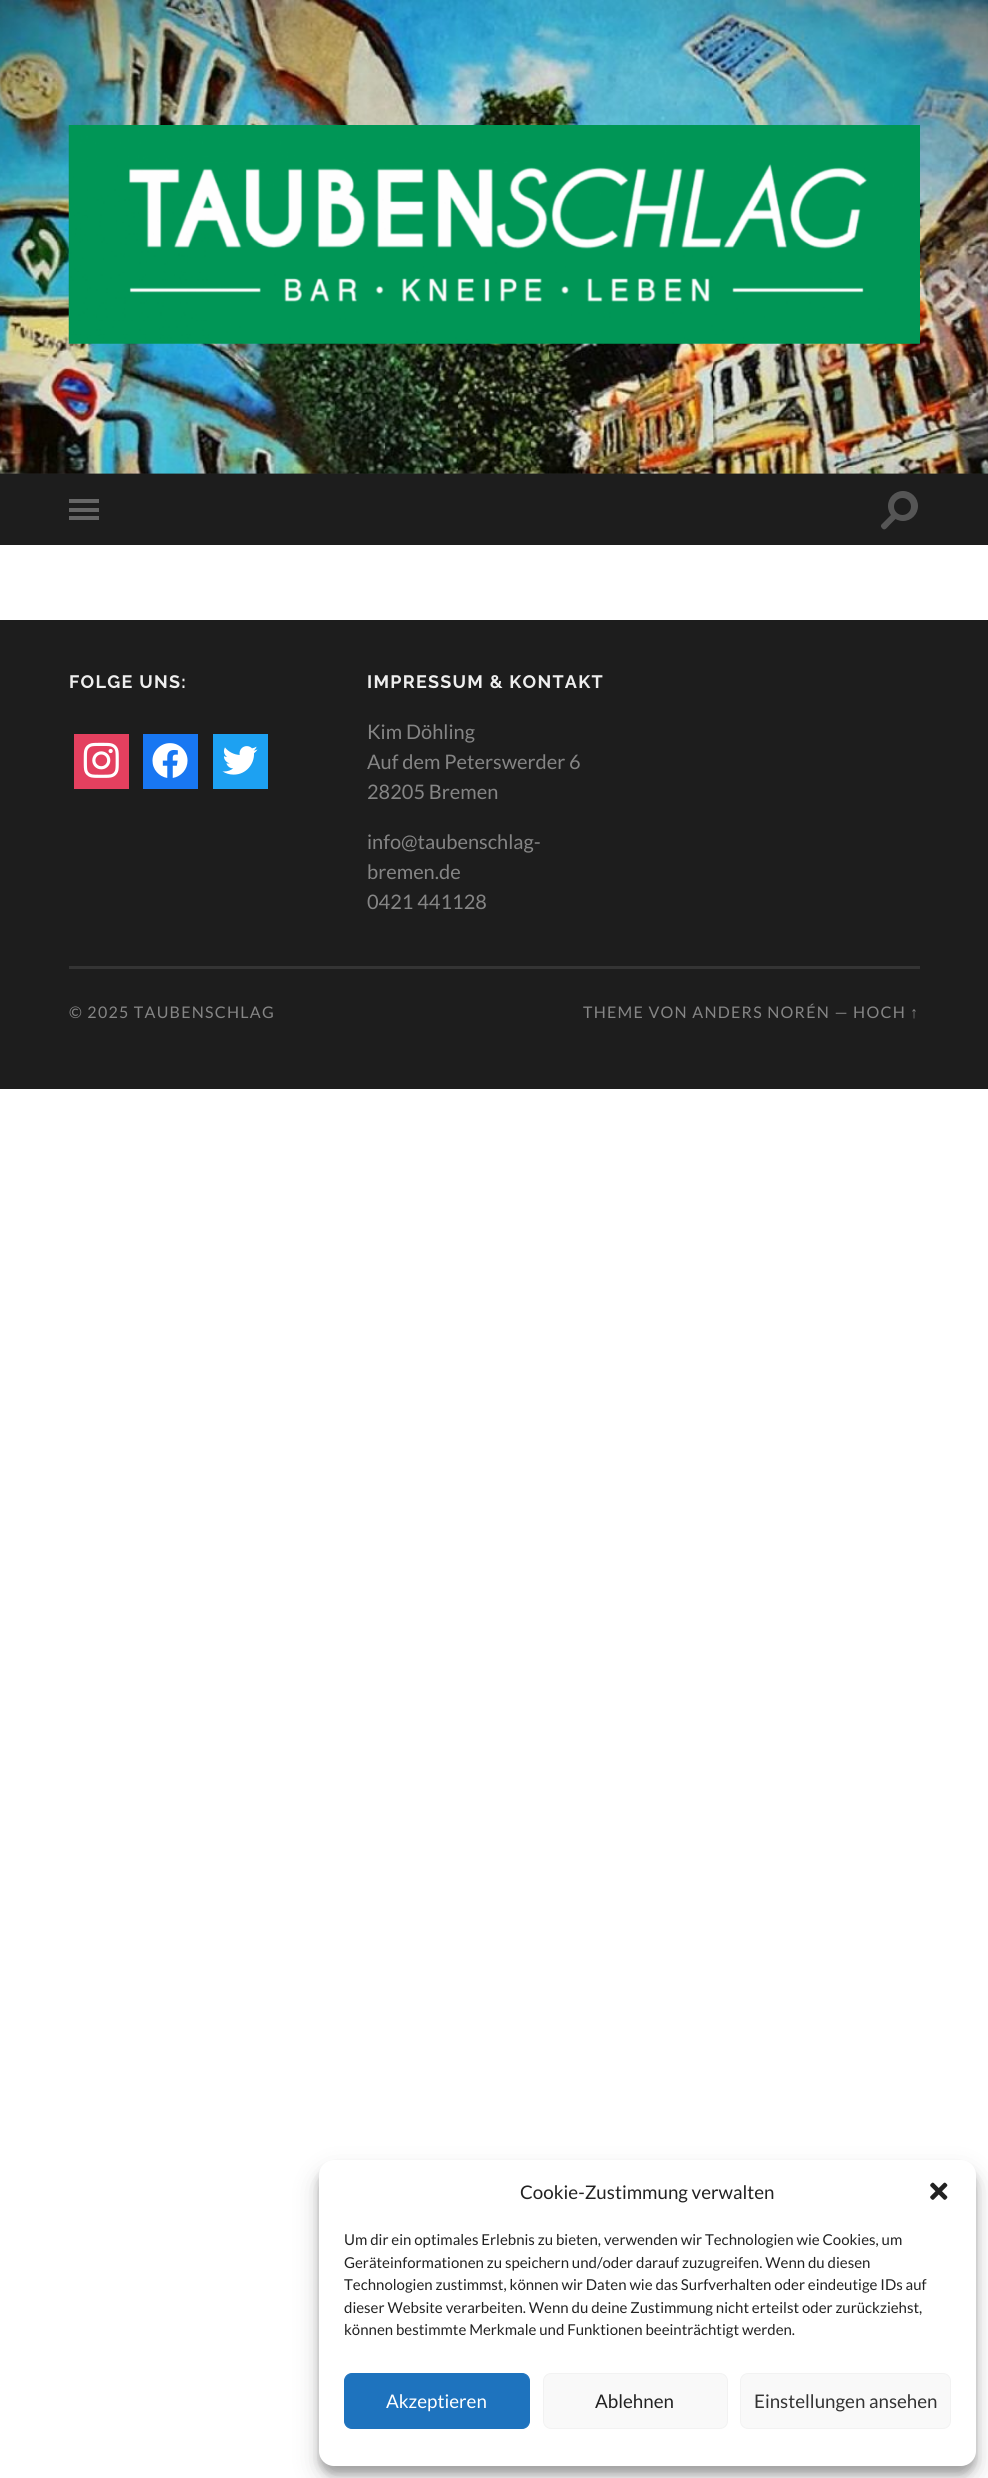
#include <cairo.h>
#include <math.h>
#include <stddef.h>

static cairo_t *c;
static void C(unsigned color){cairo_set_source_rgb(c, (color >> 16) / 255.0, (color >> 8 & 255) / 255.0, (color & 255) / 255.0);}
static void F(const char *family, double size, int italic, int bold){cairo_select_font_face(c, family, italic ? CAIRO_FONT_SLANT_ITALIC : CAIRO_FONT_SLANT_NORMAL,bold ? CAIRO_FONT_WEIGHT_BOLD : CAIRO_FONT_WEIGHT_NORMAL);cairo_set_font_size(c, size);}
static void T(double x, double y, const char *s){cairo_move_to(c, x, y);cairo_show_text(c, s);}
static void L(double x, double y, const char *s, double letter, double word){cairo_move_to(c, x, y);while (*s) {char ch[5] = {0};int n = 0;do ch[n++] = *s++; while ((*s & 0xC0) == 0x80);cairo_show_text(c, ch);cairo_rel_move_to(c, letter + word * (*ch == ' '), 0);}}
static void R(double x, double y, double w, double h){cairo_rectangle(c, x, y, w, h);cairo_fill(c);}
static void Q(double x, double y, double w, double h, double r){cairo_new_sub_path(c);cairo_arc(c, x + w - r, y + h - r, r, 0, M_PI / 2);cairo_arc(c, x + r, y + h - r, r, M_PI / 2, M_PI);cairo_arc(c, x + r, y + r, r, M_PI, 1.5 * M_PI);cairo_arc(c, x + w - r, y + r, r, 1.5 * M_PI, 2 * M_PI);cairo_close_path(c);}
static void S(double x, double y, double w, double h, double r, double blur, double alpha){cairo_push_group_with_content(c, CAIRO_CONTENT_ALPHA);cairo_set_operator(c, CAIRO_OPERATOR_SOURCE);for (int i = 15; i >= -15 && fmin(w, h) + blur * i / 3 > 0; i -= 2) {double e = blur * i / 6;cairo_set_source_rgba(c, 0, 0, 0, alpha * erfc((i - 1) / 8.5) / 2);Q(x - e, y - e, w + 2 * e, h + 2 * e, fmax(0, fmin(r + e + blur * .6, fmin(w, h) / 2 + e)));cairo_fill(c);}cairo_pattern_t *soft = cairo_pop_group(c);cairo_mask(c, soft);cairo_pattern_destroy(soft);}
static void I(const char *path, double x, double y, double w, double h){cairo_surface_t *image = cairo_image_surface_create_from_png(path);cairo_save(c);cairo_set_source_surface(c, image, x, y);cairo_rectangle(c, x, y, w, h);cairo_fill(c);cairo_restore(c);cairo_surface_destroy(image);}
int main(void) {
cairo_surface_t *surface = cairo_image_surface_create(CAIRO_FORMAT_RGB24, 988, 2478);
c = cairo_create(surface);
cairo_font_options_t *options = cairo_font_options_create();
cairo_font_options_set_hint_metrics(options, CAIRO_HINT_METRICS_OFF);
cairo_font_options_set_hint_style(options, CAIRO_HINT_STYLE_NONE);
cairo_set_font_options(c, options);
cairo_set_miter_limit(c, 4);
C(0xffffff);
cairo_paint(c);
C(0x262626);
R(0,473,988,1);
I("1.png",0,0,988,474);
I("2.png",68,125,852,219);
C(0x1d1d1d);
R(0,474,988,71);
C(0x666666);
R(69,499,30,4);
R(69,508,30,4);
R(69,516,30,4);
C(0x555555);
cairo_arc(c,903,506,15,0,2 * M_PI);
cairo_fill(c);
C(0x1d1d1d);
cairo_arc(c,902.5,506.5,8.5,0,2 * M_PI);
cairo_fill(c);
C(0x555555);
cairo_new_path(c);
cairo_move_to(c,881.5,524.5);
cairo_line_to(c,892.5,513.5);
cairo_line_to(c,896.5,518);
cairo_line_to(c,889.5,525);
cairo_curve_to(c,887,527.5,884.5,532,881.5,527.5);
cairo_curve_to(c,880.5,526.5,881,525,881.5,524.5);
cairo_close_path(c);
cairo_fill(c);
C(0x1d1d1d);
R(0,620,988,469);
F("Raleway Thin",18,0,0);
C(0xeeeeee);
L(69,688,"FOLGE UNS:",1.25,0);
C(0xe4405f);
R(74,734,55,55);
I("3.png",83,742,36,36);
C(0x1877f2);
R(143,734,55,55);
I("4.png",152,743,36,35);
C(0x1da1f2);
R(213,734,55,55);
I("5.png",222,746,36,29);
C(0xeeeeee);
L(367,688,"IMPRESSUM & KONTAKT",1.25,0);
F("Lato",20,0,0);
C(0x858585);
T(367,739,"Kim Döhling");
T(367,769,"Auf dem Peterswerder 6");
T(367,799,"28205 Bremen");
T(367,849,"info@taubenschlag-");
T(367,879,"bremen.de");
T(367,909,"0421 441128");
C(0x343434);
R(69,966,851,3);
F("Lato",16,0,0);
C(0x858585);
L(69,1018,"© 2025 TAUBENSCHLAG",1.25,0);
L(583,1018,"THEME VON ANDERS NORÉN — HOCH",1.25,0);
F("Liberation Sans",16,0,0);
L(910,1018,"↑",1.25,0);
C(0x000000);
S(319,2168,657,306,15,4,.23);
S(319,2173,657,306,15,12.5,.19);
C(0xffffff);
Q(319,2160,657,306,15);
cairo_fill(c);
F("Lato",18.75,0,0);
C(0x222222);
T(520,2199,"Cookie-Zustimmung verwalten");
I("6.png",930,2182,18,18);
F("Lato",15,0,0);
T(344,2245,"Um dir ein optimales Erlebnis zu bieten, verwenden wir Technologien wie Cookies, um");
T(344,2268,"Geräteinformationen zu speichern und/oder darauf zuzugreifen. Wenn du diesen");
T(344,2290,"Technologien zustimmst, können wir Daten wie das Surfverhalten oder eindeutige IDs auf");
T(344,2313,"dieser Website verarbeiten. Wenn du deine Zustimmung nicht erteilst oder zurückziehst,");
T(344,2335,"können bestimmte Merkmale und Funktionen beeinträchtigt werden.");
C(0x1e73be);
Q(344.5,2373.5,185,55,7.5);
cairo_fill_preserve(c);
cairo_set_line_width(c,1);
cairo_stroke(c);
F("Lato",18.75,0,0);
C(0xffffff);
T(386,2408,"Akzeptieren");
C(0xf9f9f9);
Q(543.5,2373.5,184,55,7.5);
cairo_fill_preserve(c);
C(0xf2f2f2);
cairo_stroke(c);
C(0x222222);
T(595,2408,"Ablehnen");
C(0xf9f9f9);
Q(740.5,2373.5,210,55,7.5);
cairo_fill_preserve(c);
C(0xf2f2f2);
cairo_stroke(c);
C(0x333333);
T(754,2408,"Einstellungen ansehen");
cairo_surface_write_to_png(surface, "o.png");
cairo_font_options_destroy(options);
cairo_destroy(c);
cairo_surface_destroy(surface);
return 0;
}
